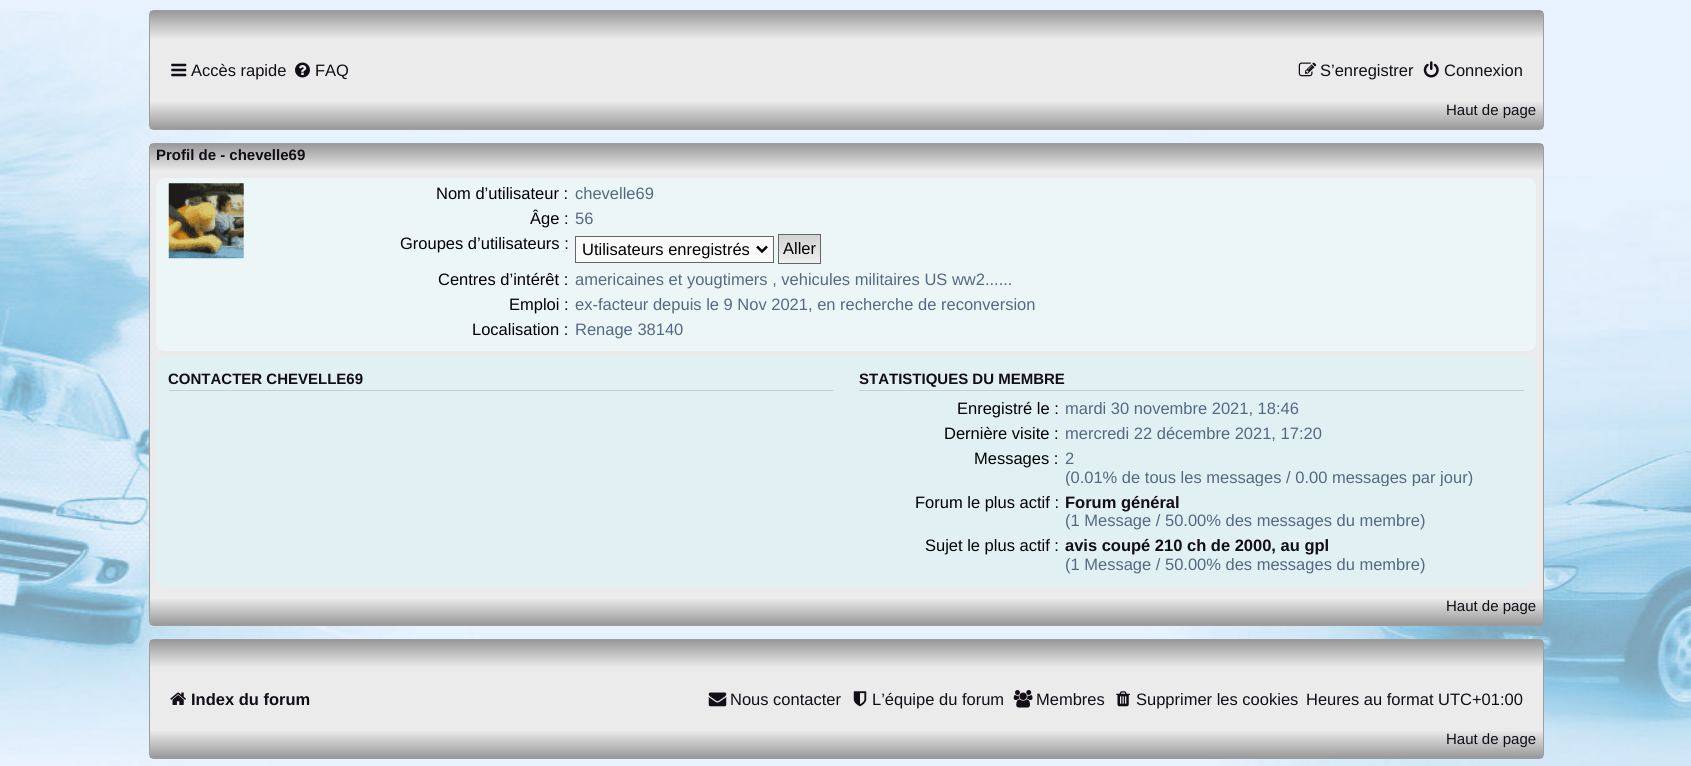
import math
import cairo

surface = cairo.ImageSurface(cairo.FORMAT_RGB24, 1691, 766)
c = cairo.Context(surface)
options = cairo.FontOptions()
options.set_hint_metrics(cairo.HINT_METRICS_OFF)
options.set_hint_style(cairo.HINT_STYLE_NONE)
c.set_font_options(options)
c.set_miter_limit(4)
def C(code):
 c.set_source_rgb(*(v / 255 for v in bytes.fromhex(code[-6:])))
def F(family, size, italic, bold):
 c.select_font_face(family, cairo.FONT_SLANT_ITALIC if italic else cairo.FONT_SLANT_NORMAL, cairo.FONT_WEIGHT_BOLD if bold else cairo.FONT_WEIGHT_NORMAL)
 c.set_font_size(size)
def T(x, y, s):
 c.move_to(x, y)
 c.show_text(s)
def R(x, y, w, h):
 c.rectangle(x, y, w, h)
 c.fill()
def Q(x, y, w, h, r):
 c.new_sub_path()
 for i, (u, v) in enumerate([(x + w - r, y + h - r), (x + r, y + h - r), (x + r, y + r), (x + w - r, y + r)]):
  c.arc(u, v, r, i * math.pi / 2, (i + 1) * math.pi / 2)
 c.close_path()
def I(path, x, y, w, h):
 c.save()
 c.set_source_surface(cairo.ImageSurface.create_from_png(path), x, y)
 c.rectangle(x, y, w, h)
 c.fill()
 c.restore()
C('e7f2fe')
c.paint()
I('1.png',0,11,1691,755)
C('ebebeb')
Q(149.5,10.5,1394,119,4.5)
c.fill_preserve()
C('9d9d9d')
c.set_line_width(1)
c.stroke()
gradient = cairo.LinearGradient(846,39,846,11)
gradient.add_color_stop_rgba(0,0.922,0.922,0.922,1)
gradient.add_color_stop_rgba(1,0.6,0.6,0.6,1)
c.set_source(gradient)
R(150,11,1393,27)
I('2.png',171,63,16,14)
F('Liberation Sans',16.5,0,0)
C('120d16')
T(191,76,'Accès rapide')
I('3.png',295,62,15,16)
T(315,76,'FAQ')
I('4.png',1298,62,19,15)
T(1320,76,'S’enregistrer')
I('5.png',1423,61,16,17)
T(1444,76,'Connexion')
gradient = cairo.LinearGradient(846,129,846,101)
gradient.add_color_stop_rgba(0,0.6,0.6,0.6,1)
gradient.add_color_stop_rgba(1,0.922,0.922,0.922,1)
c.set_source(gradient)
R(150,102,1393,27)
F('Liberation Sans',15,0,0)
C('120d16')
T(1446,115,'Haut de page')
C('ebebeb')
Q(149.5,143.5,1394,482,4.5)
c.fill_preserve()
C('9d9d9d')
c.stroke()
gradient = cairo.LinearGradient(846,171,846,144)
gradient.add_color_stop_rgba(0,0.922,0.922,0.922,1)
gradient.add_color_stop_rgba(1,0.6,0.6,0.6,1)
c.set_source(gradient)
R(150,144,1393,26)
F('Liberation Sans',15,0,1)
C('120d16')
T(156,160,'Profil de - chevelle69')
C('edf6f7')
Q(156,178,1380,173,9)
c.fill()
I('6.png',168,183,76,76)
F('Liberation Sans',16.5,0,0)
C('000000')
T(436,199,'Nom d’utilisateur :')
C('536982')
T(575,199,'chevelle69')
C('000000')
T(530,224,'Âge :')
C('536982')
T(575,224,'56')
C('000000')
T(400,249,'Groupes d’utilisateurs :')
C('fafafa')
c.rectangle(575.5,236.5,198,26)
c.fill_preserve()
C('666666')
c.stroke()
c.new_path()
c.move_to(757,246.5)
c.line_to(762,251.5)
c.line_to(767,246.5)
C('000000')
c.set_line_width(2.5)
c.stroke()
T(582,255,'Utilisateurs enregistrés')
gradient = cairo.LinearGradient(799,235,799,263)
gradient.add_color_stop_rgba(0,0.824,0.824,0.824,1)
gradient.add_color_stop_rgba(1,0.937,0.937,0.937,1)
c.set_source(gradient)
R(779,235,41,28)
c.rectangle(778.5,234.5,42,29)
C('666666')
c.set_line_width(1)
c.stroke()
C('000000')
T(783,254,'Aller')
T(438,285,'Centres d’intérêt :')
C('536982')
T(575,285,'americaines et yougtimers , vehicules militaires US ww2......')
C('000000')
T(509,310,'Emploi :')
C('536982')
T(575,310,'ex-facteur depuis le 9 Nov 2021, en recherche de reconversion')
C('000000')
T(472,335,'Localisation :')
C('536982')
T(575,335,'Renage 38140')
C('e1f0f2')
Q(156,356,1380,230,9)
c.fill()
C('cccccc')
R(169,390,664,1)
F('Liberation Sans',15,0,1)
C('120d16')
T(168,384,'CONTACTER CHEVELLE69')
C('cccccc')
R(859,390,665,1)
C('120d16')
T(859,384,'STATISTIQUES DU MEMBRE')
F('Liberation Sans',16.5,0,0)
C('000000')
T(957,414,'Enregistré le :')
C('536982')
T(1065,414,'mardi 30 novembre 2021, 18:46')
C('000000')
T(944,439,'Dernière visite :')
C('536982')
T(1065,439,'mercredi 22 décembre 2021, 17:20')
C('000000')
T(974,464,'Messages :')
C('536982')
T(1065,464,'2')
c.save()
c.rectangle(1059,449,431,37)
c.clip()
T(1065,483,'(0.01% de tous les messages / 0.00 messages par jour)')
c.restore()
C('000000')
T(915,508,'Forum le plus actif :')
F('Liberation Sans',16.5,0,1)
C('120d16')
T(1065,508,'Forum général')
F('Liberation Sans',16.5,0,0)
C('536982')
T(1065,526,'(1 Message / 50.00% des messages du membre)')
C('000000')
T(925,551,'Sujet le plus actif :')
F('Liberation Sans',16.5,0,1)
C('120d16')
T(1065,551,'avis coupé 210 ch de 2000, au gpl')
F('Liberation Sans',16.5,0,0)
C('536982')
T(1065,570,'(1 Message / 50.00% des messages du membre)')
gradient = cairo.LinearGradient(846,625,846,598)
gradient.add_color_stop_rgba(0,0.6,0.6,0.6,1)
gradient.add_color_stop_rgba(1,0.922,0.922,0.922,1)
c.set_source(gradient)
R(150,599,1393,26)
F('Liberation Sans',15,0,0)
C('120d16')
T(1446,611,'Haut de page')
C('ebebeb')
Q(149.5,639.5,1394,119,4.5)
c.fill_preserve()
C('9d9d9d')
c.stroke()
gradient = cairo.LinearGradient(846,668,846,640)
gradient.add_color_stop_rgba(0,0.922,0.922,0.922,1)
gradient.add_color_stop_rgba(1,0.6,0.6,0.6,1)
c.set_source(gradient)
R(150,640,1393,27)
I('7.png',170,692,16,13)
F('Liberation Sans',16.5,0,1)
C('120d16')
T(191,705,'Index du forum')
I('8.png',708,692,19,15)
F('Liberation Sans',16.5,0,0)
T(730,705,'Nous contacter')
I('9.png',853,691,14,16)
T(872,705,'L’équipe du forum')
I('10.png',1013,690,20,18)
T(1036,705,'Membres')
I('11.png',1116,691,14,16)
T(1136,705,'Supprimer les cookies')
T(1306,705,'Heures au format UTC+01:00')
gradient = cairo.LinearGradient(846,758,846,730)
gradient.add_color_stop_rgba(0,0.6,0.6,0.6,1)
gradient.add_color_stop_rgba(1,0.922,0.922,0.922,1)
c.set_source(gradient)
R(150,731,1393,27)
F('Liberation Sans',15,0,0)
C('120d16')
T(1446,744,'Haut de page')
surface.write_to_png('o.png')
